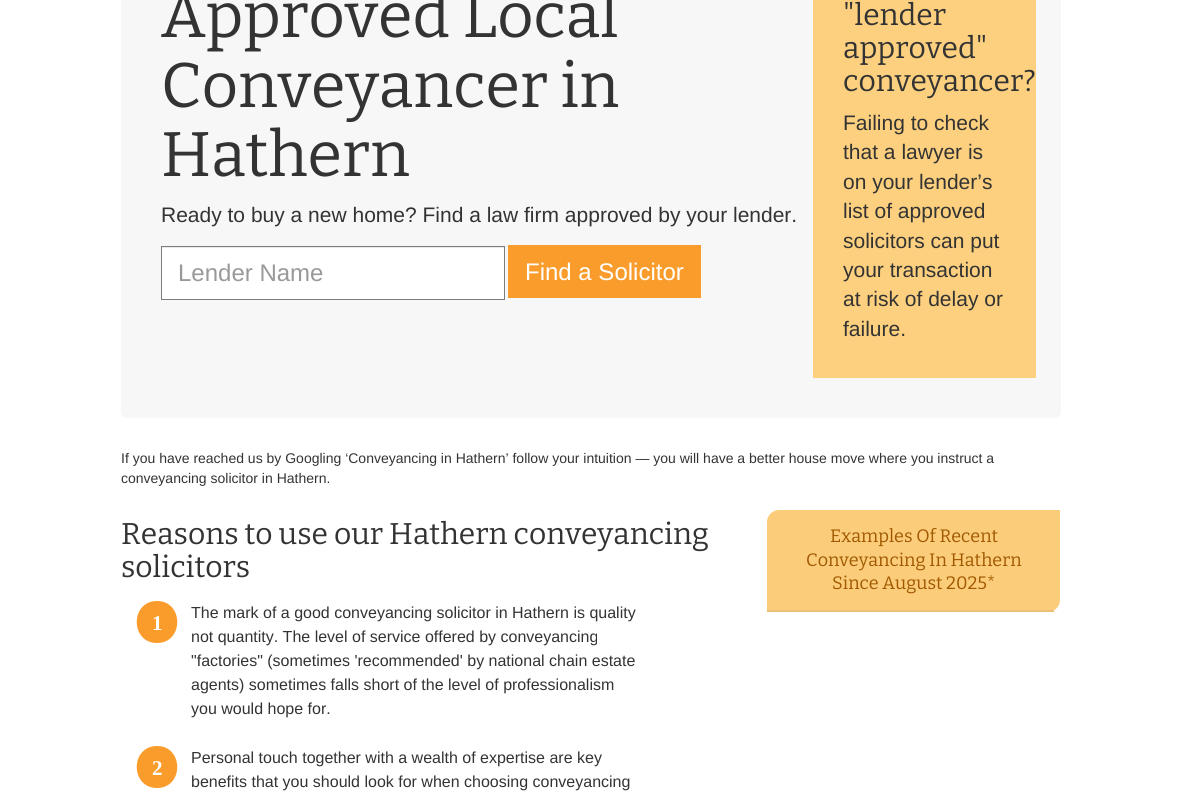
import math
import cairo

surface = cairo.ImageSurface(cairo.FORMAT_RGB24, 1181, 803)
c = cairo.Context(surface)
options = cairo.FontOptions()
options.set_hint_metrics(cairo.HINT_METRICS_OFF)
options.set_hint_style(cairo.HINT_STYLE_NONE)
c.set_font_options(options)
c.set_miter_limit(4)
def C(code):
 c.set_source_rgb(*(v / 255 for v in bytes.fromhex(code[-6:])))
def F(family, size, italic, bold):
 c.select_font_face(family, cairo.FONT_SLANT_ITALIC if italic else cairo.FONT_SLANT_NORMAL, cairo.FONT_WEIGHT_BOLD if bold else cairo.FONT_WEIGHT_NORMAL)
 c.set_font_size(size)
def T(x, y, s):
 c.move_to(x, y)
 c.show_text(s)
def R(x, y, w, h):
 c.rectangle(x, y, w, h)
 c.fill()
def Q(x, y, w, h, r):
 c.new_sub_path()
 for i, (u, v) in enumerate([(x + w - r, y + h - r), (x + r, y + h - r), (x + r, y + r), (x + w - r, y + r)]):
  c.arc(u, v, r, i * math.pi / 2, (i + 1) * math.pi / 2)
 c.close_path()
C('ffffff')
c.paint()
C('f7f7f7')
Q(121,-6,940,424,6)
c.fill()
F('Bitter',63,0,0)
C('333333')
T(161,37,'Approved Local')
T(161,107,'Conveyancer in')
T(161,176,'Hathern')
F('Liberation Sans',21,0,0)
T(161,222,'Ready to buy a new home? Find a law firm approved by your lender.')
C('ffffff')
R(162,248,342,51)
C('ececec')
R(162,247,342,1)
c.rectangle(161.5,246.5,343,53)
C('7c7c7c')
c.set_line_width(1)
c.stroke()
F('Liberation Sans',24,0,0)
C('999999')
T(178,281,'Lender Name')
C('fa9c2b')
R(508,245,193,53)
C('ffffff')
T(525,280,'Find a Solicitor')
C('fcd07e')
R(813,0,223,378)
F('Bitter',30,0,0)
C('333333')
T(843,25,'"lender')
T(843,58,'approved"')
T(843,91,'conveyancer?')
F('Liberation Sans',21,0,0)
T(843,130,'Failing to check')
T(843,159,'that a lawyer is')
T(843,189,'on your lender’s')
T(843,218,'list of approved')
T(843,248,'solicitors can put')
T(843,277,'your transaction')
T(843,306,'at risk of delay or')
T(843,336,'failure.')
F('Liberation Sans',14,0,0)
T(121,463,'If you have reached us by Googling ‘Conveyancing in Hathern’ follow your intuition — you will have a better house move where you instruct a')
T(121,483,'conveyancing solicitor in Hathern.')
F('Bitter',30,0,0)
T(121,544,'Reasons to use our Hathern conveyancing')
T(121,577,'solicitors')
C('fa9c2b')
c.new_path()
c.move_to(157,601)
c.curve_to(130,601,130,643,157,643)
c.curve_to(184,643,184,601,157,601)
c.close_path()
c.fill()
F('Liberation Serif',21,0,1)
C('ffffff')
T(152,630,'1')
F('Liberation Sans',16,0,0)
C('333333')
T(191,618,'The mark of a good conveyancing solicitor in Hathern is quality')
T(191,642,'not quantity. The level of service offered by conveyancing')
T(191,666,'"factories" (sometimes \'recommended\' by national chain estate')
T(191,690,'agents) sometimes falls short of the level of professionalism')
T(191,714,'you would hope for.')
C('fa9c2b')
c.new_path()
c.move_to(157,746)
c.curve_to(130,746,130,788,157,788)
c.curve_to(184,788,184,746,157,746)
c.close_path()
c.fill()
F('Liberation Serif',21,0,1)
C('ffffff')
T(152,775,'2')
F('Liberation Sans',16,0,0)
C('333333')
T(191,763,'Personal touch together with a wealth of expertise are key')
T(191,787,'benefits that you should look for when choosing conveyancing')
C('fbcd7a')
c.new_path()
c.move_to(779,510)
c.line_to(1060,510)
c.line_to(1060,600)
c.curve_to(1060,606.5,1054.5,612,1048,612)
c.line_to(767,612)
c.line_to(767,522)
c.curve_to(767,515.5,772.5,510,779,510)
c.close_path()
c.fill()
C('eac177')
R(767,610,287,2)
F('Bitter',18,0,0)
C('a15800')
T(830,542,'Examples Of Recent')
T(806,566,'Conveyancing In Hathern')
T(832,589,'Since August 2025*')
surface.write_to_png('o.png')
